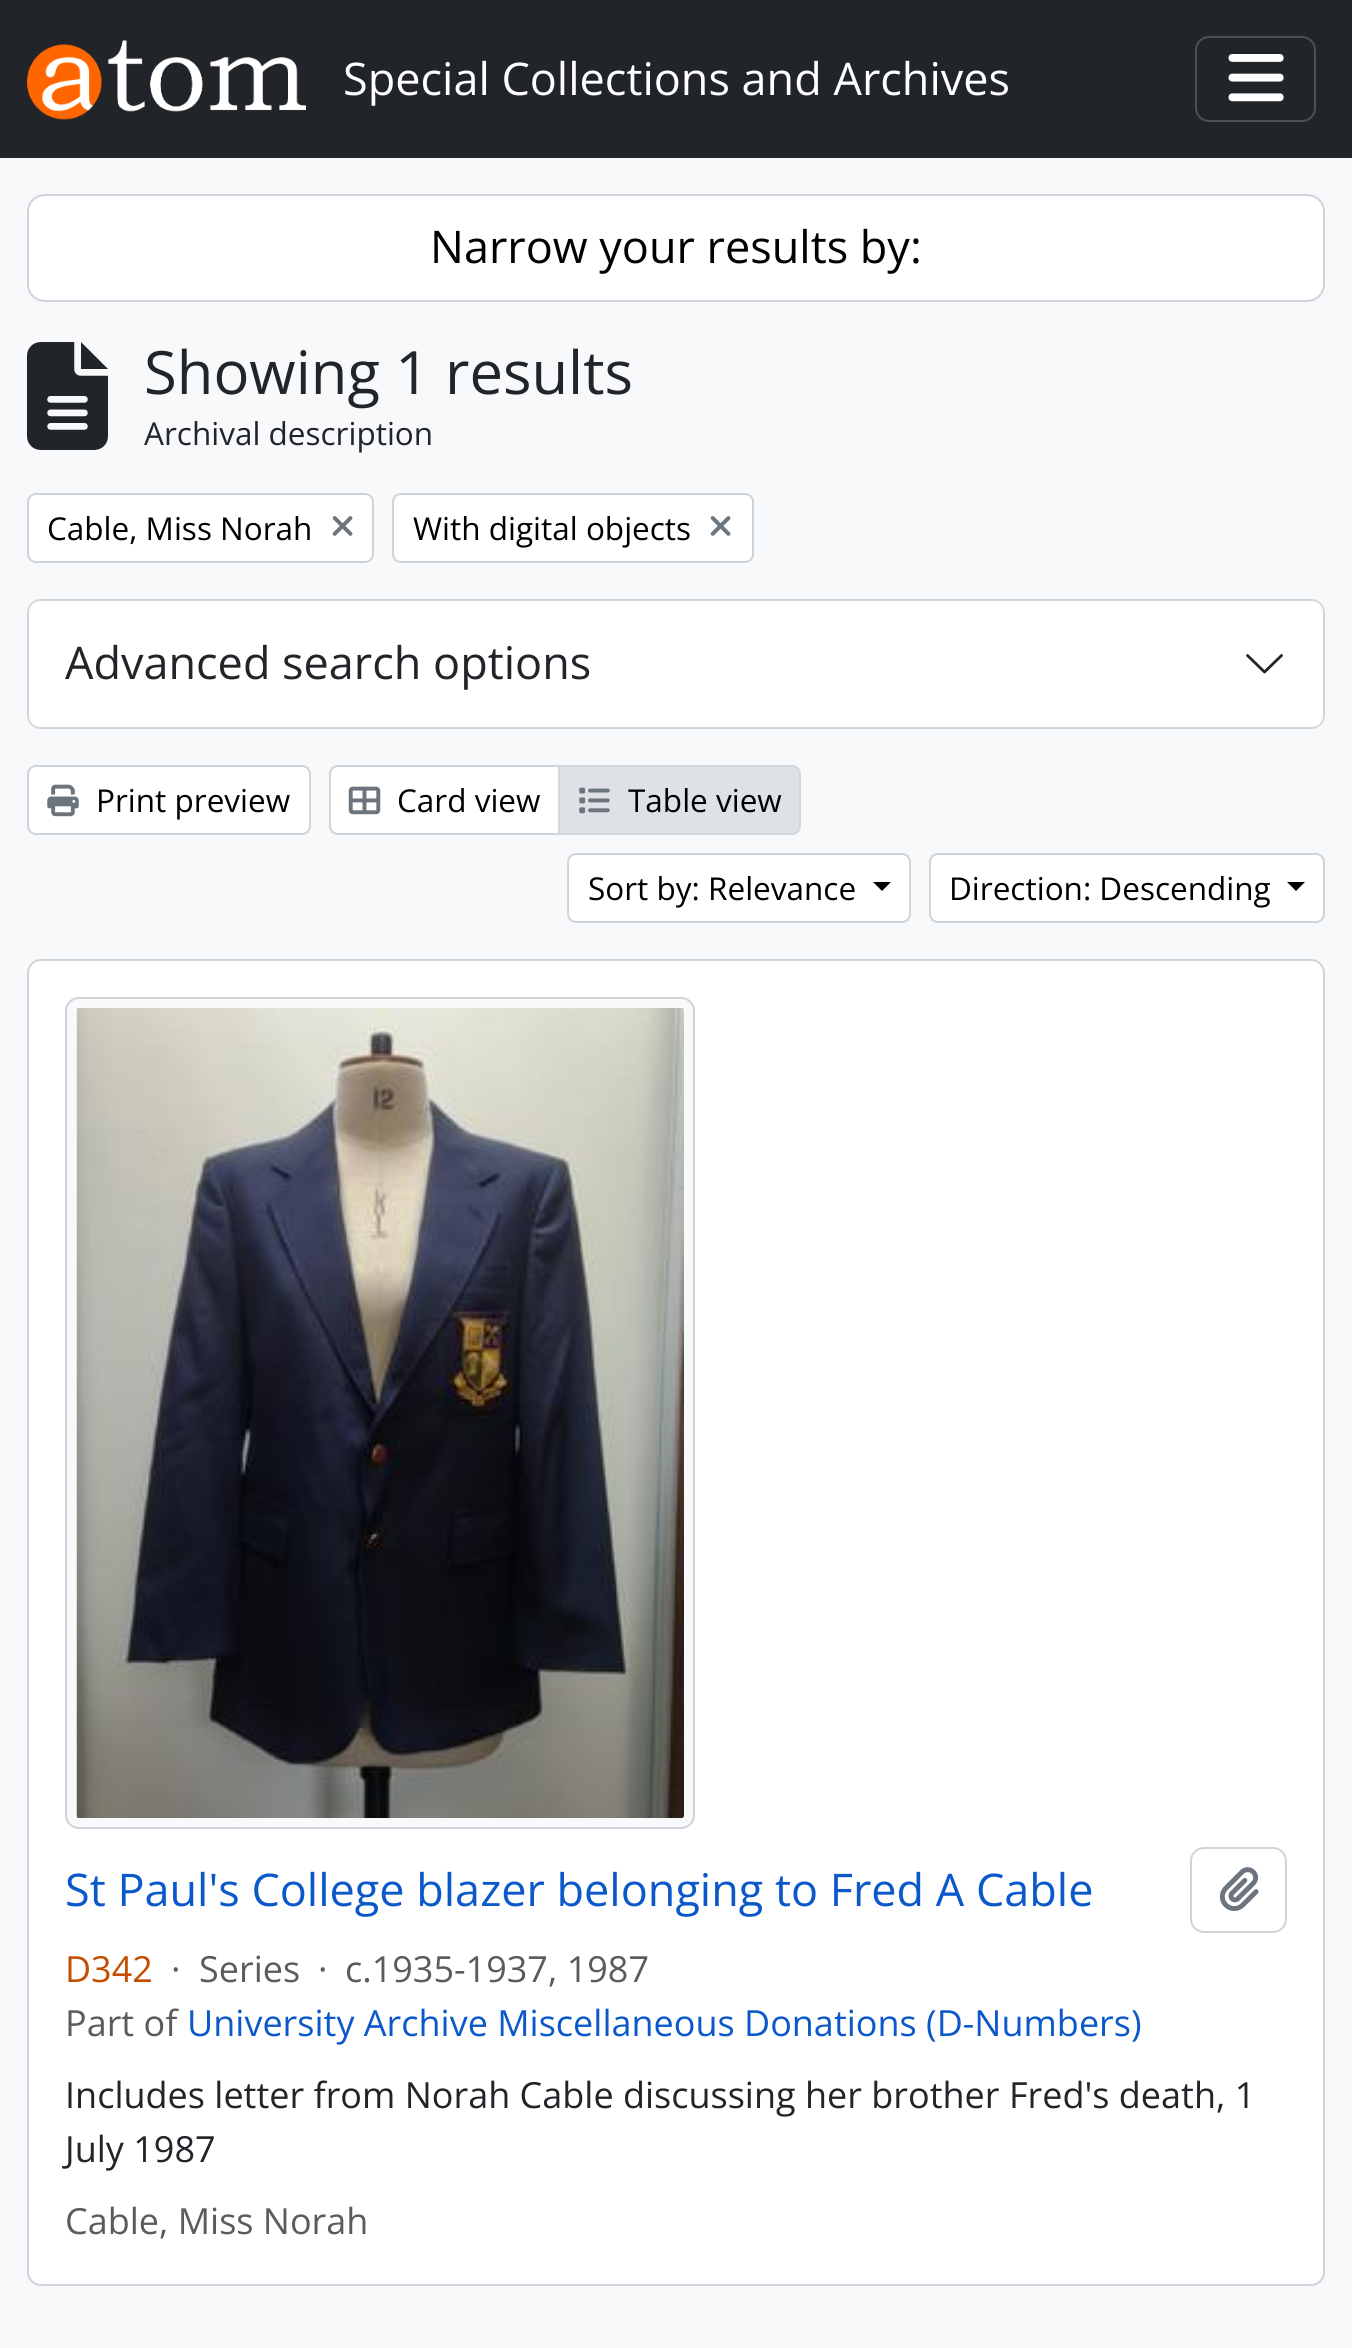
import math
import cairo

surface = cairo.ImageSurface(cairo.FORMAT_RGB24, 1352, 2348)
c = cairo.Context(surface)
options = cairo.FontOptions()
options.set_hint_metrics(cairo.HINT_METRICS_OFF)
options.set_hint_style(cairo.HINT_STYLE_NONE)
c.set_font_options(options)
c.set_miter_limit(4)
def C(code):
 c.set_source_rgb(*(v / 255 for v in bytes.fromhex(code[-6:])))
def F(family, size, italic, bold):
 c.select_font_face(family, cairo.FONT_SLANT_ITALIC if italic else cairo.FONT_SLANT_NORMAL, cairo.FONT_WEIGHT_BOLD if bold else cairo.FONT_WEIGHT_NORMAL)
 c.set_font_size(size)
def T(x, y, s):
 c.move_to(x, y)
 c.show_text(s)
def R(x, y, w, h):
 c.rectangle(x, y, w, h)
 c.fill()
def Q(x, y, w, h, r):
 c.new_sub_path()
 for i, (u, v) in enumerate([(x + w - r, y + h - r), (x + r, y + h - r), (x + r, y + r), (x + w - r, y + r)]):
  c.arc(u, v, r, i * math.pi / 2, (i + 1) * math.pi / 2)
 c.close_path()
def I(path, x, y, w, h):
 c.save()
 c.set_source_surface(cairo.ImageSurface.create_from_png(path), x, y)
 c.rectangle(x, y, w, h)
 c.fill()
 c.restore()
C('f8f9fa')
c.paint()
C('212529')
R(0,0,1352,158)
I('1.png',27,40,279,80)
F('Open Sans',45,0,0)
C('ffffff')
T(343,95,'Special Collections and Archives')
Q(1196,37,119,84,13)
C('495057')
c.stroke()
I('2.png',1228,54,56,48)
C('ffffff')
Q(28,195,1296,106,17)
c.fill_preserve()
C('ced4da')
c.stroke()
C('000000')
T(430,263,'Narrow your results by:')
I('3.png',27,342,81,108)
F('Open Sans',59.75,0,0)
C('212529')
T(144,394,'Showing 1 results')
F('Open Sans',31.5,0,0)
T(144,445,'Archival description')
C('ffffff')
Q(28,494,345,68,8)
c.fill_preserve()
C('ced4da')
c.stroke()
C('000000')
T(47,540,'Cable, Miss Norah')
I('4.png',332,516,21,20)
C('ffffff')
Q(393,494,360,68,8)
c.fill_preserve()
C('ced4da')
c.stroke()
C('000000')
T(413,540,'With digital objects')
I('4.png',710,516,21,20)
Q(28,600,1296,128,13)
C('ced4da')
c.stroke()
C('ffffff')
Q(29,601,1294,126,11)
c.fill()
F('Open Sans',45,0,0)
C('212529')
T(65,679,'Advanced search options')
c.new_path()
c.move_to(1247.5,655.5)
c.line_to(1264.5,672)
c.line_to(1281.5,655.5)
c.set_line_width(2.8)
c.set_line_cap(cairo.LINE_CAP_ROUND)
c.set_line_join(cairo.LINE_JOIN_ROUND)
c.stroke()
C('ffffff')
Q(28,766,282,68,8)
c.fill_preserve()
C('ced4da')
c.set_line_width(2)
c.set_line_cap(cairo.LINE_CAP_BUTT)
c.set_line_join(cairo.LINE_JOIN_MITER)
c.stroke()
I('5.png',47,784,32,33)
F('Open Sans',31.5,0,0)
C('000000')
T(96,812,'Print preview')
C('ffffff')
c.new_path()
c.move_to(338,766)
c.line_to(559,766)
c.line_to(559,834)
c.line_to(338,834)
c.curve_to(333.5,834,330,830.5,330,826)
c.line_to(330,774)
c.curve_to(330,769.5,333.5,766,338,766)
c.close_path()
c.fill_preserve()
C('ced4da')
c.stroke()
I('6.png',348,786,33,29)
C('000000')
T(397,812,'Card view')
C('dee2e6')
c.new_path()
c.move_to(559,766)
c.line_to(792,766)
c.curve_to(796.5,766,800,769.5,800,774)
c.line_to(800,826)
c.curve_to(800,830.5,796.5,834,792,834)
c.line_to(559,834)
c.close_path()
c.fill_preserve()
C('d3d8de')
c.stroke()
I('7.png',579,787,31,27)
C('000000')
T(628,812,'Table view')
C('ffffff')
Q(568,854,342,68,8)
c.fill_preserve()
C('ced4da')
c.stroke()
C('000000')
T(588,900,'Sort by: Relevance')
c.new_path()
c.move_to(873,882)
c.line_to(891,882)
c.line_to(882,891)
c.close_path()
c.fill()
C('ffffff')
Q(930,854,394,68,8)
c.fill_preserve()
C('ced4da')
c.stroke()
C('000000')
T(949,900,'Direction: Descending')
c.new_path()
c.move_to(1287,882)
c.line_to(1305,882)
c.line_to(1296,891)
c.close_path()
c.fill()
C('ffffff')
Q(28,960,1296,1325,13)
c.fill_preserve()
C('ced4da')
c.stroke()
C('f8f9fa')
Q(66,998,628,830,13)
c.fill_preserve()
C('ced4da')
c.stroke()
I('8.png',76,1008,608,810)
F('Open Sans',45,0,0)
C('0a58ca')
T(65,1906,'St Paul\'s College blazer belonging to Fred A Cable')
Q(1191,1848,95,84,13)
C('ced4da')
c.stroke()
I('9.png',1219,1867,40,44)
F('Open Sans',36,0,0)
C('c44e00')
T(65,1982,'D342')
C('595c5f')
T(171,1982,'·')
T(199,1982,'Series')
T(318,1982,'·')
T(345,1982,'c.1935-1937, 1987')
T(65,2036,'Part of')
C('0a58ca')
T(187,2036,'University Archive Miscellaneous Donations (D-Numbers)')
C('212529')
T(65,2108,'Includes letter from Norah Cable discussing her brother Fred\'s death, 1')
T(65,2162,'July 1987')
C('595c5f')
T(65,2234,'Cable, Miss Norah')
surface.write_to_png('o.png')
